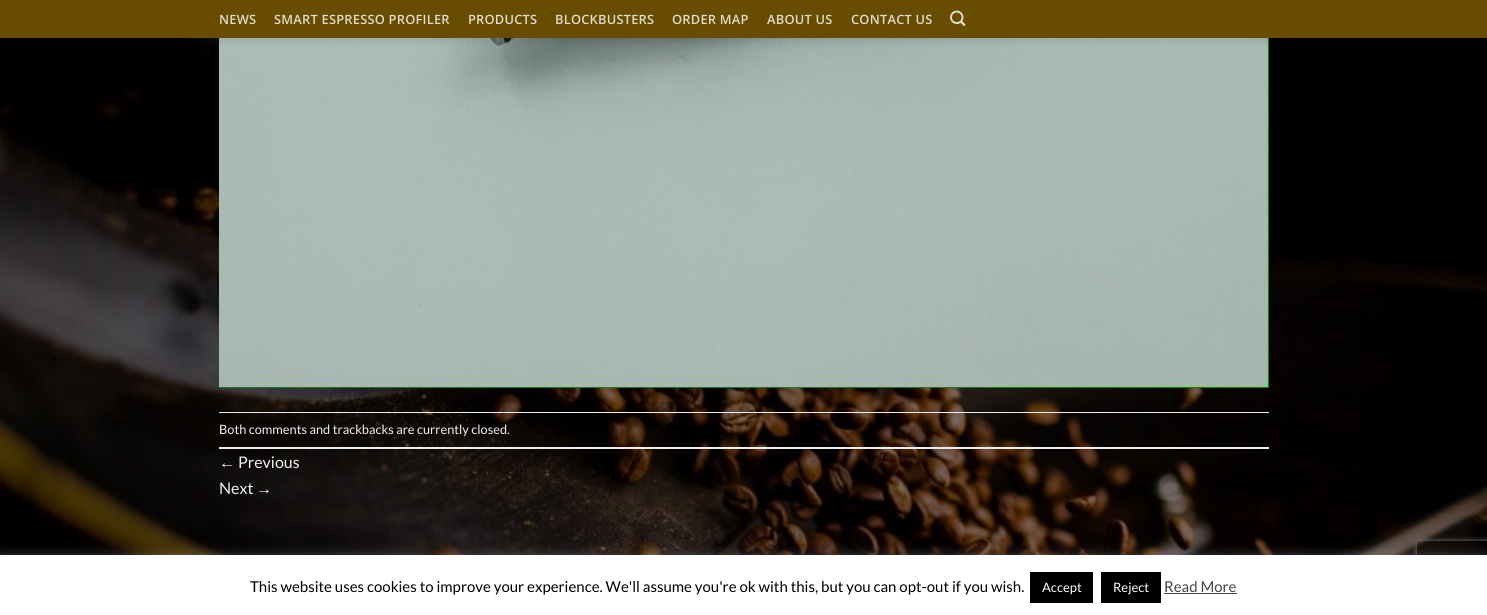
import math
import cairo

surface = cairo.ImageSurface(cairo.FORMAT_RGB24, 1487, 615)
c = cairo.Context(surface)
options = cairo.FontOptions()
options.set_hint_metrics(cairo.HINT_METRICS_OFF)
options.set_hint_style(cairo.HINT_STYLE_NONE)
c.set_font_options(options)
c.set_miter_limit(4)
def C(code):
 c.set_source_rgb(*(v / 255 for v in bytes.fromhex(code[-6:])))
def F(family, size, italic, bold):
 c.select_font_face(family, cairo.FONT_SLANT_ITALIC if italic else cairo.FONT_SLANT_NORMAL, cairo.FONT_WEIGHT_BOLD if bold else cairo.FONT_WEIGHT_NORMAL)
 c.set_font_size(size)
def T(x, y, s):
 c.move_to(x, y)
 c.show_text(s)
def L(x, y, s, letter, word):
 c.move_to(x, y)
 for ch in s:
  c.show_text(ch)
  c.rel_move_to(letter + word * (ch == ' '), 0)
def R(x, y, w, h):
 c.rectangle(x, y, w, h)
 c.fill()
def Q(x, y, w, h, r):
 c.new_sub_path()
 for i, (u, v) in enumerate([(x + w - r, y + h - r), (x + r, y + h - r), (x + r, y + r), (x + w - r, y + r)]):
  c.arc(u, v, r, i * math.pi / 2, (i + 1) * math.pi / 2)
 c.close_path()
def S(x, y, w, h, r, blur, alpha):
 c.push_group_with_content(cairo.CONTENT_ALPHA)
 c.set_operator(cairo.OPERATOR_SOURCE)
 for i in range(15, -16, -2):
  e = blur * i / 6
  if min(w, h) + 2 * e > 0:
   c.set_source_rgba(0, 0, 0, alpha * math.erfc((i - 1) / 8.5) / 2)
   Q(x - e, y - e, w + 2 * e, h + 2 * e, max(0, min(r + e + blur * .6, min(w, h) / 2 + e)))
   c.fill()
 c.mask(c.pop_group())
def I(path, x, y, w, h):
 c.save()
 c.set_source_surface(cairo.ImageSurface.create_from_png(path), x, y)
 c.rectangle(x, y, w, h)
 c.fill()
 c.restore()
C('ffffff')
c.paint()
I('1.png',0,38,1487,517)
I('3.png',219,38,1050,350)
C('000000')
S(1,1,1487,38,0,5,.15)
C('684c00')
R(0,0,1487,38)
F('Open Sans SemiBold',12.8,0,0)
C('e1dbcc')
L(219,24,'NEWS',.25,0)
L(274,24,'SMART ESPRESSO PROFILER',.25,0)
L(468,24,'PRODUCTS',.25,0)
L(555,24,'BLOCKBUSTERS',.25,0)
L(672,24,'ORDER MAP',.25,0)
L(767,24,'ABOUT US',.25,0)
L(851,24,'CONTACT US',.25,0)
I('2.png',950,10,16,16)
C('ececec')
R(219,412,1050,1)
R(219,447,1050,2)
F('Lato',12.8,0,0)
C('f1f1f1')
T(219,434,'Both comments and trackbacks are currently closed.')
F('Liberation Sans',16,0,0)
T(219,468,'←')
F('Lato',16,0,0)
T(238,468,'Previous')
T(219,494,'Next')
F('Liberation Sans',16,0,0)
T(256,494,'→')
C('acabab')
S(0,554,1487,60,0,5,.3)
c.save()
c.set_fill_rule(cairo.FILL_RULE_EVEN_ODD)
c.new_path()
c.move_to(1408,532)
c.line_to(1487,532)
c.line_to(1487,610)
c.line_to(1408,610)
c.close_path()
c.move_to(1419,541)
c.line_to(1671,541)
c.curve_to(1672,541,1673,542,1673,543)
c.line_to(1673,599)
c.curve_to(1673,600,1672,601,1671,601)
c.line_to(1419,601)
c.curve_to(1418,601,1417,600,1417,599)
c.line_to(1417,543)
c.curve_to(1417,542,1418,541,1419,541)
c.close_path()
c.clip()
C('808080')
S(1417,541,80,60,2,2.5,1)
c.restore()
C('ffffff')
R(0,555,1487,60)
F('Lato',15,0,0)
C('000000')
T(250,592,'This website uses cookies to improve your experience. We\'ll assume you\'re ok with this, but you can opt-out if you wish.')
R(1030,572,63,31)
F('Lato',13,0,0)
C('ffffff')
T(1042,592,'Accept')
C('000000')
R(1101,572,60,31)
C('ffffff')
T(1113,592,'Reject')
F('Lato',15,0,0)
C('444444')
T(1164,592,'Read More')
R(1164,593,73,1)
surface.write_to_png('o.png')
